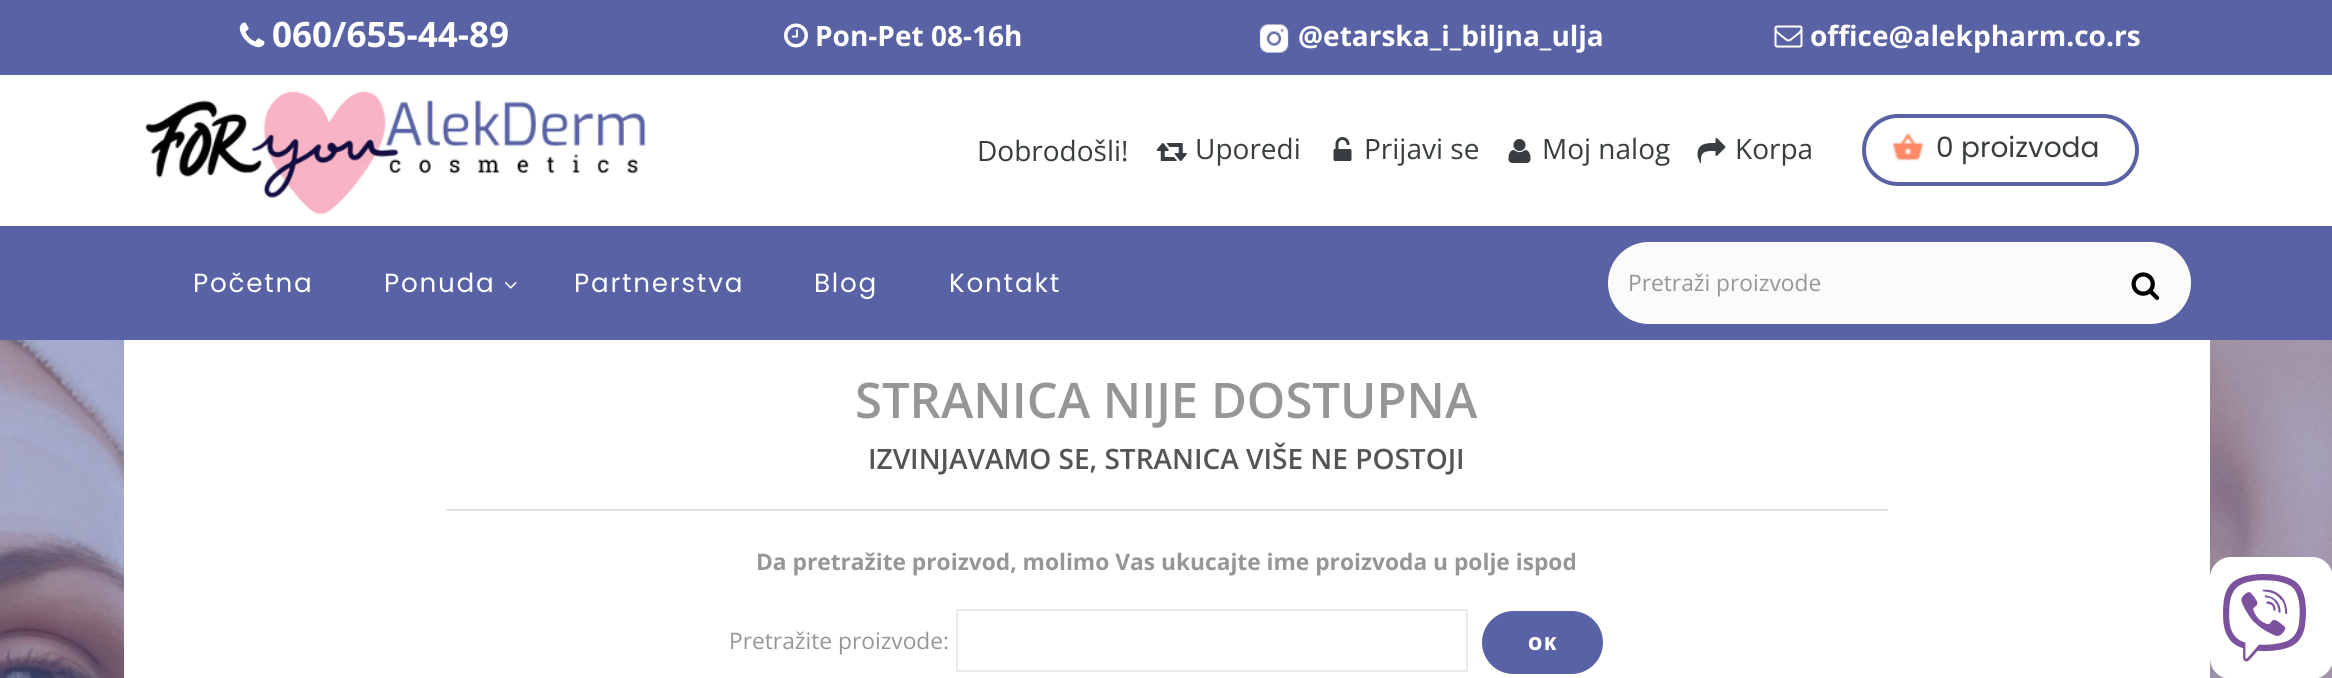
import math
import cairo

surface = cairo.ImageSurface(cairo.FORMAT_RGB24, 2332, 678)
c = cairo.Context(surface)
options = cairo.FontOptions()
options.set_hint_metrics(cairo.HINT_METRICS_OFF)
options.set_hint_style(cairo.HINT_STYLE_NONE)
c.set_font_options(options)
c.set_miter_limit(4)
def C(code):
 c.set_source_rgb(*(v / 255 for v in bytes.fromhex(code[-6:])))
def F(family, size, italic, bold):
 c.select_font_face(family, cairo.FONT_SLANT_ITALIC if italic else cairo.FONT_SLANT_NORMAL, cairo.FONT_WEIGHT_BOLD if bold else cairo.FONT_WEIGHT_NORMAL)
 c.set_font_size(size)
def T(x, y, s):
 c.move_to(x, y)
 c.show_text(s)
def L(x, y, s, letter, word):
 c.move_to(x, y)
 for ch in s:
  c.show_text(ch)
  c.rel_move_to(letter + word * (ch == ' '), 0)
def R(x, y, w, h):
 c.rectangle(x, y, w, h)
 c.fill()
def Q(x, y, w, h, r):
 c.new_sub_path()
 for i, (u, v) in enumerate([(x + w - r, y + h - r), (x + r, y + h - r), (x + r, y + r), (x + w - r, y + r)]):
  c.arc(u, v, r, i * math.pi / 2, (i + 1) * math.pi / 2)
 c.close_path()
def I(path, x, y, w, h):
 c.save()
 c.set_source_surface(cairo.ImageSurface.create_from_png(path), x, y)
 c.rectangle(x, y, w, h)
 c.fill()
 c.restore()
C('ffffff')
c.paint()
C('5862a4')
R(0,0,2332,75)
I('1.png',239,22,26,26)
F('Open Sans',35,0,1)
C('ffffff')
T(272,47,'060/655-44-89')
I('2.png',784,23,24,25)
F('Open Sans',28,0,1)
T(815,46,'Pon-Pet 08-16h')
I('3.png',1259,24,30,29)
T(1298,46,'@etarska_i_biljna_ulja')
I('4.png',1774,25,29,23)
T(1810,46,'office@alekpharm.co.rs')
I('5.png',0,340,124,338)
I('6.png',145,91,501,124)
F('Open Sans',28,0,0)
C('383d40')
T(977,161,'Dobrodošli!')
I('7.png',1156,143,31,18)
T(1195,159,'Uporedi')
I('8.png',1333,137,19,24)
T(1364,159,'Prijavi se')
I('9.png',1508,139,23,24)
T(1542,159,'Moj nalog')
I('10.png',1697,138,29,25)
T(1735,159,'Korpa')
I('11.png',1892,133,32,28)
Q(1864,116,273,68,34)
C('5862a4')
c.set_line_width(4)
c.stroke()
F('Poppins',28,0,0)
C('383d40')
T(1936,157,'0 proizvoda')
C('5862a4')
R(0,226,2332,114)
F('Poppins',26.25,0,0)
C('ffffff')
L(193,292,'Početna',1.75,0)
L(384,292,'Ponuda',1.75,0)
I('12.png',505,282,12,7)
L(574,292,'Partnerstva',1.75,0)
L(814,292,'Blog',1.75,0)
L(949,292,'Kontakt',1.75,0)
Q(1608,242,583,82,41)
c.fill()
Q(1609,243,581,80,40)
c.set_source_rgba(1,1,1,0.1)
c.set_line_width(2)
c.stroke()
c.save()
Q(1610,243,579,79,39.5)
c.clip()
C('fbfbfb')
c.new_path()
c.move_to(1649.5,243)
c.line_to(2188,243)
c.line_to(2188,322)
c.line_to(1649.5,322)
c.curve_to(1627.5,322,1610,304.5,1610,282.5)
c.curve_to(1610,260.5,1627.5,243,1649.5,243)
c.close_path()
c.fill()
c.restore()
F('Open Sans',22.75,0,0)
C('969696')
T(1628,291,'Pretraži proizvode')
I('13.png',2131,272,29,28)
F('Open Sans SemiBold',49,0,0)
T(855,418,'STRANICA NIJE DOSTUPNA')
C('e1e1e1')
R(446,509,1442,2)
F('Open Sans SemiBold',28,0,0)
C('555454')
T(868,469,'IZVINJAVAMO SE, STRANICA VIŠE NE POSTOJI')
F('Open Sans',22.75,0,1)
C('969696')
T(756,570,'Da pretražite proizvod, molimo Vas ukucajte ime proizvoda u polje ispod')
F('Open Sans',22.75,0,0)
T(729,649,'Pretražite proizvode:')
c.rectangle(957,610,510,61)
C('ebebeb')
c.stroke()
C('5862a4')
Q(1484,613,117,59,29.5)
c.fill_preserve()
c.set_line_width(4)
c.stroke()
F('Open Sans ExtraBold',18,0,0)
C('ffffff')
L(1528,650,'OK',1.75,0)
I('14.png',2210,340,122,338)
Q(2210,557,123,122,21)
c.fill()
I('15.png',2223,574,83,88)
surface.write_to_png('o.png')
